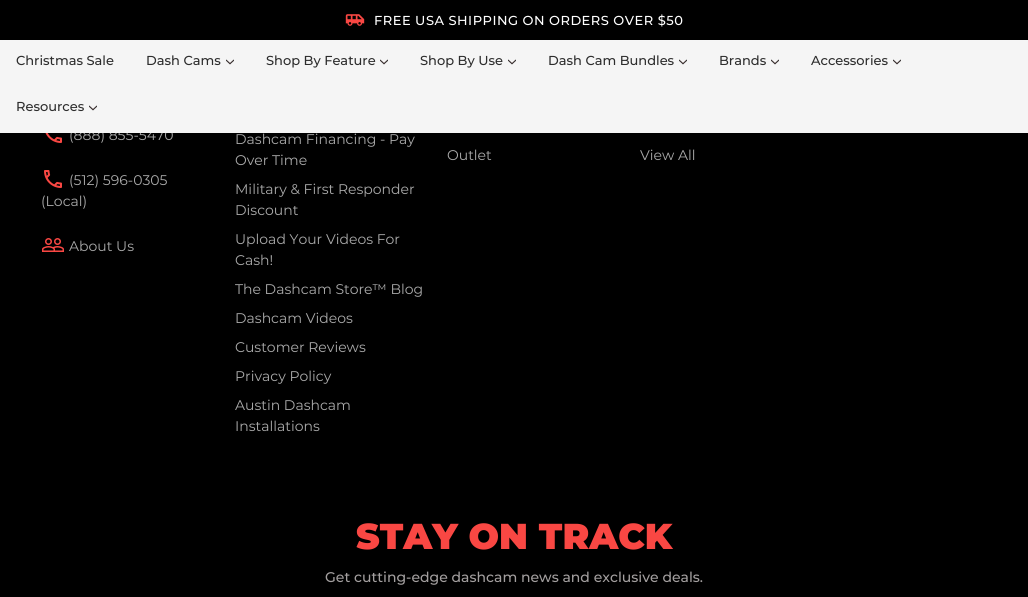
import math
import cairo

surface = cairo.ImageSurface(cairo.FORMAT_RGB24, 1028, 597)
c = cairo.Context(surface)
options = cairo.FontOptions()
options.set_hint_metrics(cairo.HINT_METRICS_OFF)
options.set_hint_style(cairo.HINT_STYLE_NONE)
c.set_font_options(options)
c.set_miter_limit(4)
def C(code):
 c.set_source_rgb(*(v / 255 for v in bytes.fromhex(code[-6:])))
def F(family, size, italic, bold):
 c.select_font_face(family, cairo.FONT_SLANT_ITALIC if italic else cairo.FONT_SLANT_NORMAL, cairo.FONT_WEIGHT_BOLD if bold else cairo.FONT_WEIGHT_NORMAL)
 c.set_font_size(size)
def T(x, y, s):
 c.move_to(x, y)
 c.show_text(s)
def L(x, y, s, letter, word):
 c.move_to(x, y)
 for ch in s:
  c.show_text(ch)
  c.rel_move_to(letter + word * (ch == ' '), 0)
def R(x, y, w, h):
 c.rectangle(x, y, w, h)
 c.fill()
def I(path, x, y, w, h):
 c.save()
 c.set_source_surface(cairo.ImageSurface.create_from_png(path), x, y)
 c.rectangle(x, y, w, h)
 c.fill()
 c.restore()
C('000000')
c.paint()
I('1.png',345,14,20,12)
F('Montserrat Medium',13,0,0)
C('ffffff')
L(374,25,'FREE USA SHIPPING ON ORDERS OVER $50',.5,0)
F('Montserrat',14,0,0)
C('aaaaaa')
T(69,140,'(888) 855-5470')
C('f5f5f5')
R(0,40,1028,93)
F('Montserrat Medium',13,0,0)
C('2d2d2d')
T(16,65,'Christmas Sale')
T(146,65,'Dash Cams')
I('2.png',226,59,8,6)
T(266,65,'Shop By Feature')
I('2.png',380,59,8,6)
T(420,65,'Shop By Use')
I('2.png',508,59,8,6)
T(548,65,'Dash Cam Bundles')
I('2.png',679,59,8,6)
T(719,65,'Brands')
I('2.png',771,59,8,6)
T(811,65,'Accessories')
I('2.png',893,59,8,6)
T(16,111,'Resources')
I('2.png',89,105,8,6)
I('3.png',45,133,17,10)
I('4.png',44,170,18,18)
F('Montserrat',14,0,0)
C('aaaaaa')
T(69,185,'(512) 596-0305')
T(41,206,'(Local)')
I('5.png',42,238,22,14)
T(69,251,'About Us')
T(235,144,'Dashcam Financing - Pay')
T(235,165,'Over Time')
T(235,194,'Military & First Responder')
T(235,215,'Discount')
T(235,244,'Upload Your Videos For')
T(235,265,'Cash!')
T(235,294,'The Dashcam Store™ Blog')
T(235,323,'Dashcam Videos')
T(235,352,'Customer Reviews')
T(235,381,'Privacy Policy')
T(235,410,'Austin Dashcam')
T(235,431,'Installations')
T(447,160,'Outlet')
T(640,160,'View All')
F('Montserrat Black',36,0,0)
C('f94743')
T(356,549,'STAY ON TRACK')
F('Montserrat Medium',14,0,0)
C('a39f9f')
T(325,582,'Get cutting-edge dashcam news and exclusive deals.')
surface.write_to_png('o.png')
